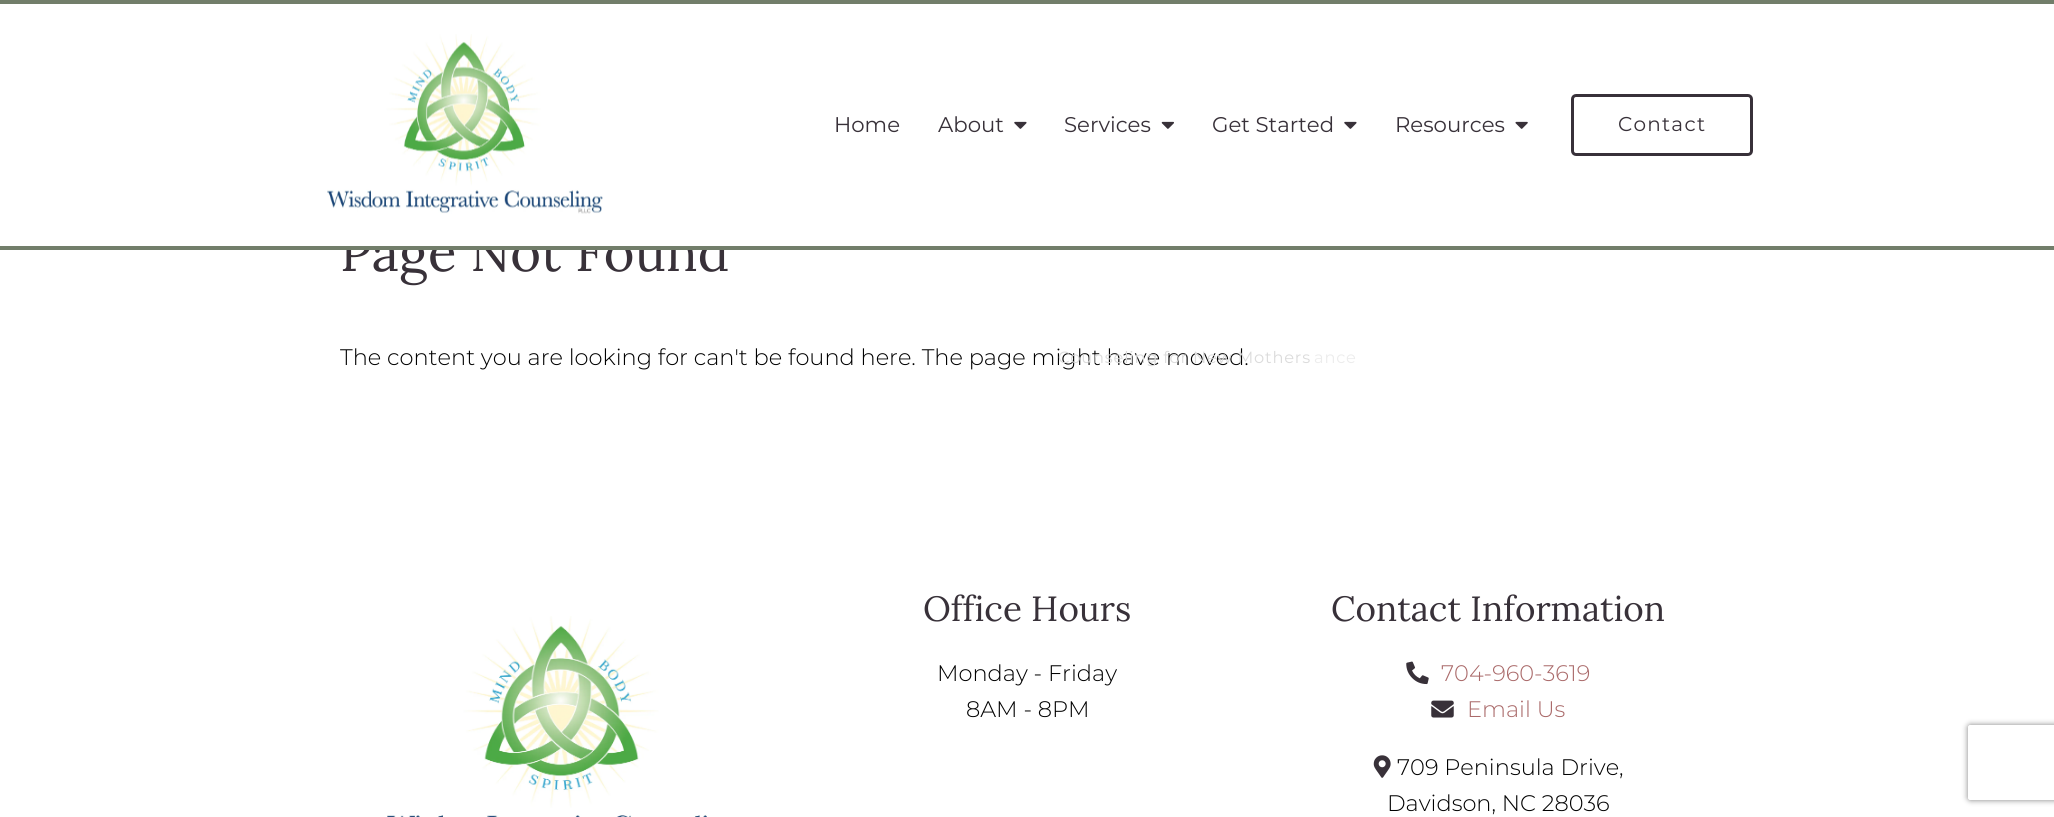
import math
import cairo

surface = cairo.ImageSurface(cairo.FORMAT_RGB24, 2054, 817)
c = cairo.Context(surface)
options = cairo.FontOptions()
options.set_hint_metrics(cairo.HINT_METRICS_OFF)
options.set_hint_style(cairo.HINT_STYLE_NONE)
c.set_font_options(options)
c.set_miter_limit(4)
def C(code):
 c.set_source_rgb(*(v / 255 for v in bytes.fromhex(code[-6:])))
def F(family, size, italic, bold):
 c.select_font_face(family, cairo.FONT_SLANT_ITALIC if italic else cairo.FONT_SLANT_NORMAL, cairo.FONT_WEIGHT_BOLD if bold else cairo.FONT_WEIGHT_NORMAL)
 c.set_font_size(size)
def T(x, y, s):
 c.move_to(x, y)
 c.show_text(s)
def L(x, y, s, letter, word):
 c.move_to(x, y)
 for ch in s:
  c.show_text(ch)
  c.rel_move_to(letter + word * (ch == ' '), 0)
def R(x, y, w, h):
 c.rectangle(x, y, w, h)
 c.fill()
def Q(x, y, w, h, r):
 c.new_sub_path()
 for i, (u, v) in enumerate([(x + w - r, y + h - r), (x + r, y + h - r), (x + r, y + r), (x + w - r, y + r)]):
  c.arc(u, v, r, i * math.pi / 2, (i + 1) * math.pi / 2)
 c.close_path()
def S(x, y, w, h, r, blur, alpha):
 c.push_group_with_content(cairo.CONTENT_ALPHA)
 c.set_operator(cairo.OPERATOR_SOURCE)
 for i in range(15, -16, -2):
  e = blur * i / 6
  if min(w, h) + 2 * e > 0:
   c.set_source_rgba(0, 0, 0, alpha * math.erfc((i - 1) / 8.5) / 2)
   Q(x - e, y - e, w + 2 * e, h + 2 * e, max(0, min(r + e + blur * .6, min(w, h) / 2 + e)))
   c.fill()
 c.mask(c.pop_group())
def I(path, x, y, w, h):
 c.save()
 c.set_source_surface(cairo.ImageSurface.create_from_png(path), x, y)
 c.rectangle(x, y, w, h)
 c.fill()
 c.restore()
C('ffffff')
c.paint()
F('Lora',52.5,0,0)
C('383139')
T(340,271,'Page Not Found')
F('Montserrat Light',22.5,0,0)
C('000000')
T(340,365,'The content you are looking for can\'t be found here. The page might have moved.')
C('ffffff')
R(342,231,383,15)
C('727e6a')
R(0,0,2054,4)
R(0,246,2054,4)
I('1.png',327,34,276,180)
F('Montserrat',21.25,0,0)
C('383139')
T(938,132,'About')
I('2.png',1014,121,13,8)
T(1064,132,'Services')
I('3.png',1161,121,13,8)
F('Montserrat',16.25,0,0)
C('dbdbdb')
L(1058,363,'Counseling for New Mothers',.8,0)
F('Montserrat',21.25,0,0)
C('383139')
T(834,132,'Home')
T(1212,132,'Get Started')
I('2.png',1344,121,13,8)
F('Montserrat',16.25,0,0)
C('ececec')
L(1314,363,'ance',.8,0)
F('Montserrat',21.25,0,0)
C('383139')
T(1395,132,'Resources')
I('4.png',1515,121,13,8)
Q(1572.5,95.5,179,59,3.5)
c.set_line_width(3)
c.stroke()
F('Montserrat',20,0,0)
L(1618,131,'Contact',1.25,0)
I('5.png',387,616,320,201)
F('Lora',35,0,0)
T(923,621,'Office Hours')
F('Montserrat Light',22.5,0,0)
C('000000')
T(937,681,'Monday - Friday')
T(966,717,'8AM - 8PM')
F('Lora',35,0,0)
C('383139')
T(1331,621,'Contact Information')
I('6.png',1406,661,23,24)
F('Montserrat Light',22.5,0,0)
C('aa6a6a')
T(1441,681,'704-960-3619')
I('7.png',1431,700,23,18)
T(1467,717,'Email Us')
I('8.png',1373,755,18,23)
C('000000')
T(1397,775,'709 Peninsula Drive,')
T(1387,811,'Davidson, NC 28036')
c.save()
c.set_fill_rule(cairo.FILL_RULE_EVEN_ODD)
c.new_path()
c.move_to(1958,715)
c.line_to(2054,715)
c.line_to(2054,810)
c.line_to(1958,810)
c.close_path()
c.move_to(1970.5,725)
c.line_to(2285.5,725)
c.curve_to(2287,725,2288,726,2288,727.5)
c.line_to(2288,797.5)
c.curve_to(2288,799,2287,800,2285.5,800)
c.line_to(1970.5,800)
c.curve_to(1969,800,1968,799,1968,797.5)
c.line_to(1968,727.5)
c.curve_to(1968,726,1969,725,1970.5,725)
c.close_path()
c.clip()
C('808080')
S(1968,725,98,75,2.5,3,1)
c.restore()
surface.write_to_png('o.png')
